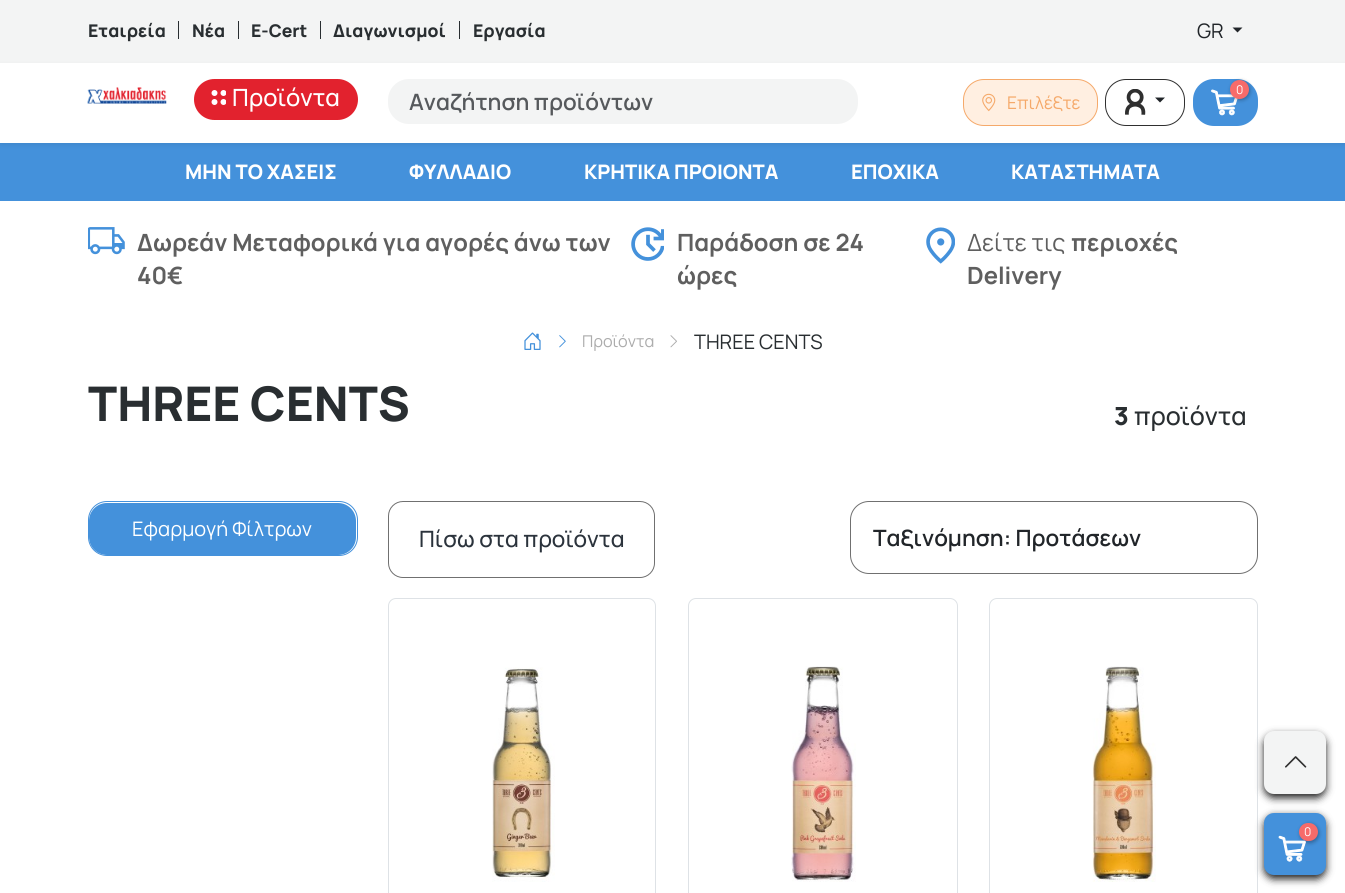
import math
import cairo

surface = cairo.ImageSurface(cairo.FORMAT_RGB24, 1345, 893)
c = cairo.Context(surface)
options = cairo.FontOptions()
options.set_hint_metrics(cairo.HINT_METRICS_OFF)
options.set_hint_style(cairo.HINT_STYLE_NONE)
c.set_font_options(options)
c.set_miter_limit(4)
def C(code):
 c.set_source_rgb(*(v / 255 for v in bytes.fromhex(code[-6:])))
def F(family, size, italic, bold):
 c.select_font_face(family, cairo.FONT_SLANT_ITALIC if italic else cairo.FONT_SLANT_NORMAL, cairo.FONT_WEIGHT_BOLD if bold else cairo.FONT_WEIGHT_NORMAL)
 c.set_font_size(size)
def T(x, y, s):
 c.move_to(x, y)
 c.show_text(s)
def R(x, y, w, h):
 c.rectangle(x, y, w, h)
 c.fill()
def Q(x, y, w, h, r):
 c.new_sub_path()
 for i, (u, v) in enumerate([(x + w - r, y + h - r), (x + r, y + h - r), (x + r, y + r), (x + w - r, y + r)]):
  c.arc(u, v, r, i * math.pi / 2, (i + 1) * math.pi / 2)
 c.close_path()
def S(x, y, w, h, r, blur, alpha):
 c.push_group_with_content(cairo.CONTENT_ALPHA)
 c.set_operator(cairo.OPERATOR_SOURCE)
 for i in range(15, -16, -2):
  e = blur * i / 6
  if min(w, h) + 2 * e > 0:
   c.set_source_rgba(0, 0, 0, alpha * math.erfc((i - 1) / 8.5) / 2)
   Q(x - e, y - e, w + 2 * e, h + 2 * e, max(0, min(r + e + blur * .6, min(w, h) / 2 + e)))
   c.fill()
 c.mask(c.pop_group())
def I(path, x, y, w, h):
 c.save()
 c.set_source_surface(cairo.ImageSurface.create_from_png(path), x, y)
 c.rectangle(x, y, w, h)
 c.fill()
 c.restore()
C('ffffff')
c.paint()
C('f3f4f4')
R(0,0,1345,63)
F('Manrope ExtraBold',17.5,0,0)
C('292e31')
T(88,37,'Εταιρεία')
R(178,21,1,18)
T(192,37,'Νέα')
R(238,21,1,18)
T(251,37,'E-Cert')
R(320,21,1,18)
T(333,37,'Διαγωνισμοί')
R(459,21,1,18)
T(473,37,'Εργασία')
F('Manrope',20,0,0)
C('212529')
T(1197,38,'GR')
c.new_path()
c.move_to(1232.5,27.5)
c.line_to(1242.5,27.5)
c.line_to(1237.5,32.5)
c.close_path()
c.fill()
C('4491db')
R(0,143,1345,58)
C('000000')
S(0,65,1345,80,0,2.5,.07)
C('ffffff')
R(0,63,1345,80)
I('1.png',87,87,80,17)
C('e2222e')
Q(194,79,164,41,20.5)
c.fill()
I('2.png',211,90,15,15)
F('Manrope Medium',23.75,0,0)
C('ffffff')
T(232,106,'Προϊόντα')
C('f3f4f4')
Q(388,79,470,45,21)
c.fill()
F('Manrope SemiBold',22.5,0,0)
C('56595c')
T(409,110,'Αναζήτηση προϊόντων')
C('4491db')
Q(1193,79,65,47,21)
c.fill()
I('3.png',1211,89,27,27)
C('000000')
S(1231,81,19,19,9.5,2,.3)
C('f76b6a')
c.arc(1239.5,89.5,9.5,0,2 * math.pi)
c.fill()
F('Manrope',12,0,0)
C('ffffff')
T(1236,94,'0')
C('ffefe1')
Q(963.5,79.5,134,46,20.5)
c.fill_preserve()
C('f5a96a')
c.set_line_width(1)
c.stroke()
I('4.png',982,93,14,19)
F('Manrope',17.5,0,0)
T(1007,109,'Επιλέξτε')
Q(1105.5,79.5,79,46,20.5)
C('2f2f2f')
c.stroke()
I('5.png',1125,89,21,26)
C('212529')
c.new_path()
c.move_to(1155,97.5)
c.line_to(1165,97.5)
c.line_to(1160,102.5)
c.close_path()
c.fill()
F('Manrope ExtraBold',20,0,0)
C('ffffff')
T(185,179,'ΜΗΝ ΤΟ ΧΑΣΕΙΣ')
T(409,179,'ΦΥΛΛΑΔΙΟ')
T(584,179,'ΚΡΗΤΙΚΑ ΠΡΟΙΟΝΤΑ')
T(851,179,'ΕΠΟΧΙΚΑ')
T(1011,179,'ΚΑΤΑΣΤΗΜΑΤΑ')
I('6.png',88,227,37,28)
F('Manrope',23.75,0,1)
C('5f5f5f')
T(137,251,'Δωρεάν Μεταφορικά για αγορές άνω των')
T(137,284,'40€')
I('7.png',631,227,33,34)
T(677,251,'Παράδοση σε 24')
T(677,284,'ώρες')
I('8.png',926,227,29,37)
F('Manrope',23.75,0,0)
T(967,251,'Δείτε τις')
F('Manrope',23.75,0,1)
T(1071,251,'περιοχές')
T(967,284,'Delivery')
I('9.png',524,332,17,18)
I('10.png',559,335,7,13)
F('Manrope',16.25,0,0)
C('acacac')
T(582,347,'Προϊόντα')
I('11.png',670,335,7,13)
F('Manrope',20,0,0)
C('292e31')
T(694,349,'THREE CENTS')
F('Manrope ExtraBold',47.75,0,0)
T(88,421,'THREE CENTS')
F('Manrope ExtraBold',25,0,0)
T(1114,425,'3')
F('Manrope Medium',25,0,0)
T(1134,425,'προϊόντα')
C('4491db')
Q(89,503,267,52,18)
c.fill()
Q(88.5,501.5,269,54,18.5)
c.stroke()
F('Manrope',20,0,0)
C('ffffff')
T(132,536,'Εφαρμογή Φίλτρων')
Q(388.5,501.5,266,76,14.5)
C('707070')
c.stroke()
F('Manrope Medium',22.5,0,0)
C('2b333c')
T(419,547,'Πίσω στα προϊόντα')
Q(850.5,501.5,407,72,18.5)
C('707070')
c.stroke()
F('Manrope SemiBold',22.5,0,0)
C('212529')
T(873,546,'Ταξινόμηση: Προτάσεων')
Q(388.5,598.5,267,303,7.5)
C('dee2e6')
c.stroke()
I('12.png',492,667,63,215)
Q(688.5,598.5,269,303,7.5)
c.stroke()
I('13.png',791,666,65,216)
Q(989.5,598.5,268,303,7.5)
c.stroke()
I('14.png',1092,666,64,216)
C('222222')
S(1264,735,62,63,10,4,1)
C('f3f4f4')
Q(1264,731,62,63,10)
c.fill()
I('15.png',1285,756,22,12)
C('222222')
S(1264,816,62,63,10,4,1)
C('4491db')
Q(1264,813,62,62,10)
c.fill()
C('000000')
S(1300,824,19,19,9.5,2,.3)
C('f76b6a')
Q(1299,823,19,18,9)
c.fill()
F('Manrope',12,0,0)
C('ffffff')
T(1304,836,'0')
I('16.png',1278,835,28,27)
surface.write_to_png('o.png')
